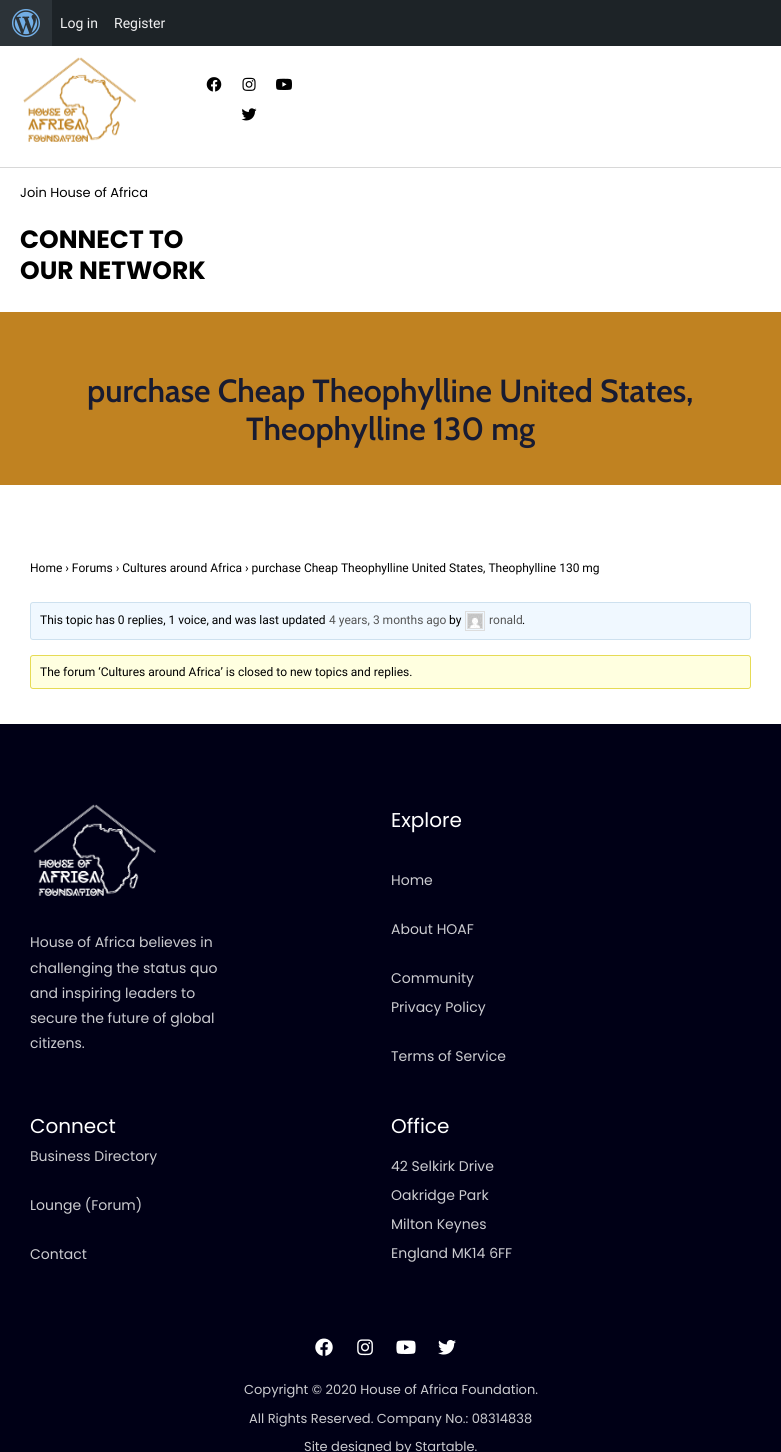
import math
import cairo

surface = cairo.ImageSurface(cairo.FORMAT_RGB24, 781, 1452)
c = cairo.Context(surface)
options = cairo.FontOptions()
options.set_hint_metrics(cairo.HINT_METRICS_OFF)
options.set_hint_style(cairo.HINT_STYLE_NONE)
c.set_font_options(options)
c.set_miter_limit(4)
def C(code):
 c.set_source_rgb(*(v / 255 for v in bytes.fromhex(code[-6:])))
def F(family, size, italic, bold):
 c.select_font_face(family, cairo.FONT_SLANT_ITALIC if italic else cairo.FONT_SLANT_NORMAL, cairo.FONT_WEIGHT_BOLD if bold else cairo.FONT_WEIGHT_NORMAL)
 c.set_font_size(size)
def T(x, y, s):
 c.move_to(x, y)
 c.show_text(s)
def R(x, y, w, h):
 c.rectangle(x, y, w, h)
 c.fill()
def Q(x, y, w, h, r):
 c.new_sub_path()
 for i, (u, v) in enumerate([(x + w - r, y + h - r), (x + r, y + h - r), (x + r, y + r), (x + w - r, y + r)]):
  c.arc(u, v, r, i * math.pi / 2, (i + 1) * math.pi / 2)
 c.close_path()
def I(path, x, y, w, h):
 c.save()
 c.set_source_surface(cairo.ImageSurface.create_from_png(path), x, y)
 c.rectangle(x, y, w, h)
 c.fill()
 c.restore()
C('ffffff')
c.paint()
C('1d2327')
R(52,0,729,46)
C('2c3338')
R(0,0,52,46)
I('1.png',12,9,28,28)
F('Roboto',14,0,0)
C('f0f0f1')
T(60,28,'Log in')
T(114,28,'Register')
C('d8d8d8')
R(0,167,781,1)
I('2.png',23,57,113,85)
I('3.png',206,77,16,15)
I('4.png',242,77,14,14)
I('5.png',276,78,16,12)
I('6.png',241,108,16,13)
F('Poppins',13,0,0)
C('000000')
T(20,197,'Join House of Africa')
F('Poppins',25,0,1)
T(20,248,'CONNECT TO')
T(20,279,'OUR NETWORK')
C('c08221')
R(0,312,781,173)
F('Cabin SemiBold',32,0,0)
C('181b31')
T(87,402,'purchase Cheap Theophylline United States,')
T(246,440,'Theophylline 130 mg')
F('Roboto',12,0,0)
C('000000')
T(30,572,'Home › Forums › Cultures around Africa › purchase Cheap Theophylline United States, Theophylline 130 mg')
C('f0f8ff')
Q(30.5,602.5,720,37,2.5)
c.fill_preserve()
C('cee1ef')
c.set_line_width(1)
c.stroke()
C('000000')
T(40,624,'This topic has 0 replies, 1 voice, and was last updated')
C('555555')
T(329,624,'4 years, 3 months ago')
C('000000')
T(449,624,'by')
c.rectangle(465.5,611.5,19,19)
C('dddddd')
c.stroke()
c.rectangle(467.5,613.5,15,15)
c.stroke()
I('7.png',468,614,14,14)
C('555555')
T(489,624,'ronald')
C('000000')
T(522,624,'.')
C('ffffe0')
Q(30.5,655.5,720,33,2.5)
c.fill_preserve()
C('e6db55')
c.stroke()
C('000000')
T(40,676,'The forum ‘Cultures around Africa’ is closed to new topics and replies.')
C('000016')
R(0,724,781,728)
I('8.png',33,804,123,92)
F('Poppins',14,0,0)
C('ccccd0')
T(30,947,'House of Africa believes in')
T(30,973,'challenging the status quo')
T(30,998,'and inspiring leaders to')
T(30,1023,'secure the future of global')
T(30,1048,'citizens.')
F('Poppins',20,0,0)
C('ffffff')
T(391,827,'Explore')
F('Poppins',14,0,0)
C('ccccd0')
T(391,885,'Home')
T(391,934,'About HOAF')
T(391,983,'Community')
T(391,1012,'Privacy Policy')
T(391,1061,'Terms of Service')
F('Poppins',20,0,0)
C('ffffff')
T(30,1133,'Connect')
F('Poppins',14,0,0)
C('ccccd0')
T(30,1161,'Business Directory')
T(30,1210,'Lounge (Forum)')
T(30,1259,'Contact')
F('Poppins',20,0,0)
C('ffffff')
T(391,1133,'Office')
F('Poppins',14,0,0)
C('ccccd0')
T(391,1171,'42 Selkirk Drive')
T(391,1200,'Oakridge Park')
T(391,1229,'Milton Keynes')
T(391,1258,'England MK14 6FF')
I('9.png',315,1338,18,18)
I('10.png',357,1339,16,17)
I('11.png',396,1340,20,14)
I('12.png',438,1339,18,16)
F('Poppins',13,0,0)
T(244,1394,'Copyright © 2020 House of Africa Foundation.')
T(249,1423,'All Rights Reserved. Company No.: 08314838')
T(304,1451,'Site designed by Startable.')
surface.write_to_png('o.png')
